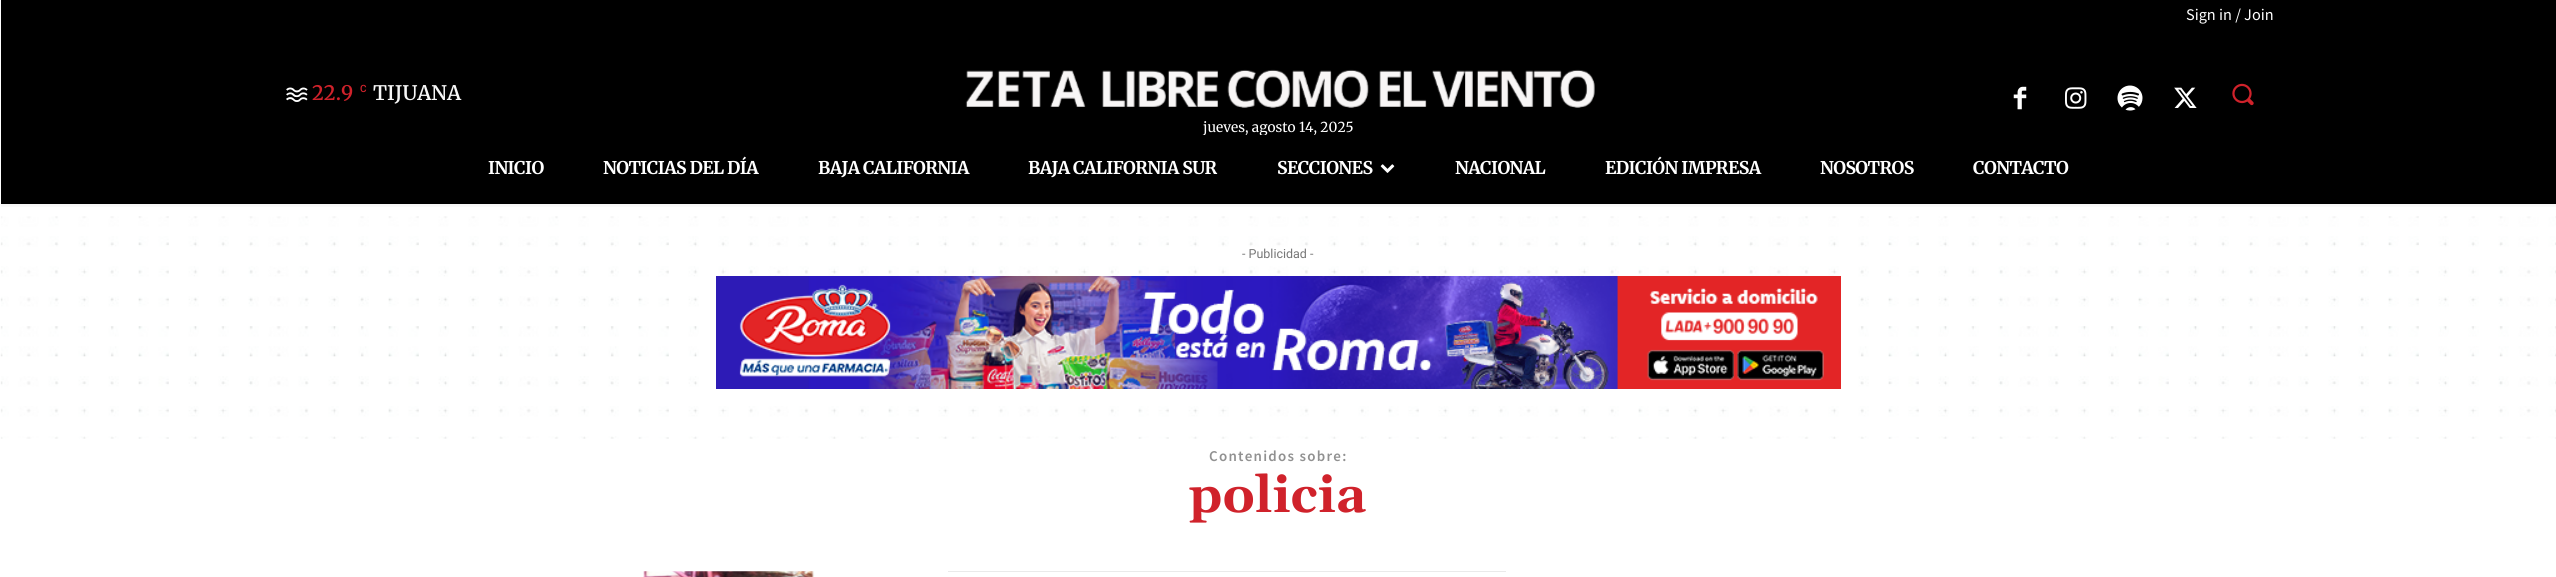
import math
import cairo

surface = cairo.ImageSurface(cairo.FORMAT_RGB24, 2556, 577)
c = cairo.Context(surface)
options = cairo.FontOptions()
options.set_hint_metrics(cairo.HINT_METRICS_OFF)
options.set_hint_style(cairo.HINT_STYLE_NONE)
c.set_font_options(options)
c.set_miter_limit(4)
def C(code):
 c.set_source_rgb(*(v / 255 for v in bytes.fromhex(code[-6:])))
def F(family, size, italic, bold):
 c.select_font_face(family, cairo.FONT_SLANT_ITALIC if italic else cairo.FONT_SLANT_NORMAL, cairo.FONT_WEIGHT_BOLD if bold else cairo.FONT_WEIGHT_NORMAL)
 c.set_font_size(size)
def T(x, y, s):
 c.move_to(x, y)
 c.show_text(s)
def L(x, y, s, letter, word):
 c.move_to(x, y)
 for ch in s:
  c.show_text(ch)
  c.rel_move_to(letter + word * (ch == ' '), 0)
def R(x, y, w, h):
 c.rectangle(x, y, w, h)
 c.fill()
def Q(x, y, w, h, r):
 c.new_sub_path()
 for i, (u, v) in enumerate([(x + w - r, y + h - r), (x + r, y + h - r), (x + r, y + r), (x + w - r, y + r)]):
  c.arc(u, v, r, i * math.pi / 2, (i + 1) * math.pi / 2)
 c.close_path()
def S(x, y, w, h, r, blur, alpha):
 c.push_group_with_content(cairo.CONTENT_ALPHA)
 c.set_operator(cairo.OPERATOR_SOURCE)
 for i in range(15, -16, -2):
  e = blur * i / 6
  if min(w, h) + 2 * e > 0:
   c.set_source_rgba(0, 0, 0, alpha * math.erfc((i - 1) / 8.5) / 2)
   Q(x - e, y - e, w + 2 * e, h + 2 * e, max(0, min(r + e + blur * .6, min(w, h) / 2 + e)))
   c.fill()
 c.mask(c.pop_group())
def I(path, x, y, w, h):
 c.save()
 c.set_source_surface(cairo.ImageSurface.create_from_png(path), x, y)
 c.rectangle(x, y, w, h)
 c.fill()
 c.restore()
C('ffffff')
c.paint()
C('000000')
R(1,0,2555,135)
F('Source Sans Pro',16.25,0,0)
C('ffffff')
T(2186,20,'Sign in / Join')
I('1.png',286,87,22,15)
F('Merriweather SemiBold',20,0,0)
C('d0222b')
T(312,100,'22.9')
F('Roboto Medium',10,0,0)
T(360,92,'C')
F('Merriweather SemiBold',20,0,0)
C('f7f7f7')
T(373,100,'TIJUANA')
I('2.png',2013,86,14,24)
I('3.png',2065,87,22,22)
I('4.png',2117,85,26,26)
I('5.png',2174,87,23,21)
I('6.png',2232,83,22,23)
I('7.png',965,69,630,39)
F('Merriweather',13.75,0,0)
C('ffffff')
T(1203,132,'jueves, agosto 14, 2025')
C('000000')
R(1,135,2555,69)
c.save()
c.rectangle(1,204,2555,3)
c.clip()
C('000000')
S(1,138,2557,68,0,2.5,.06)
c.restore()
F('Merriweather',17.5,0,1)
C('ffffff')
L(488,174,'INICIO',-.6,0)
L(603,174,'NOTICIAS DEL DÍA',-.6,0)
L(818,174,'BAJA CALIFORNIA',-.6,0)
L(1028,174,'BAJA CALIFORNIA SUR',-.6,0)
L(1277,174,'SECCIONES',-.6,0)
I('8.png',1380,164,15,9)
L(1455,174,'NACIONAL',-.6,0)
L(1605,174,'EDICIÓN IMPRESA',-.6,0)
L(1820,174,'NOSOTROS',-.6,0)
L(1973,174,'CONTACTO',-.6,0)
I('9.png',0,216,2556,223)
F('Roboto',12.5,0,0)
C('767676')
T(1242,258,'- Publicidad -')
I('10.png',716,276,1125,113)
F('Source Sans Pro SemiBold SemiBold',15,0,0)
C('919191')
L(1209,461,'Contenidos sobre:',1.25,0)
F('Gelasio',51,0,1)
C('d0222b')
T(1189,512,'policia')
I('11.png',643,571,172,6)
C('eaeaea')
R(948,571,558,1)
surface.write_to_png('o.png')
